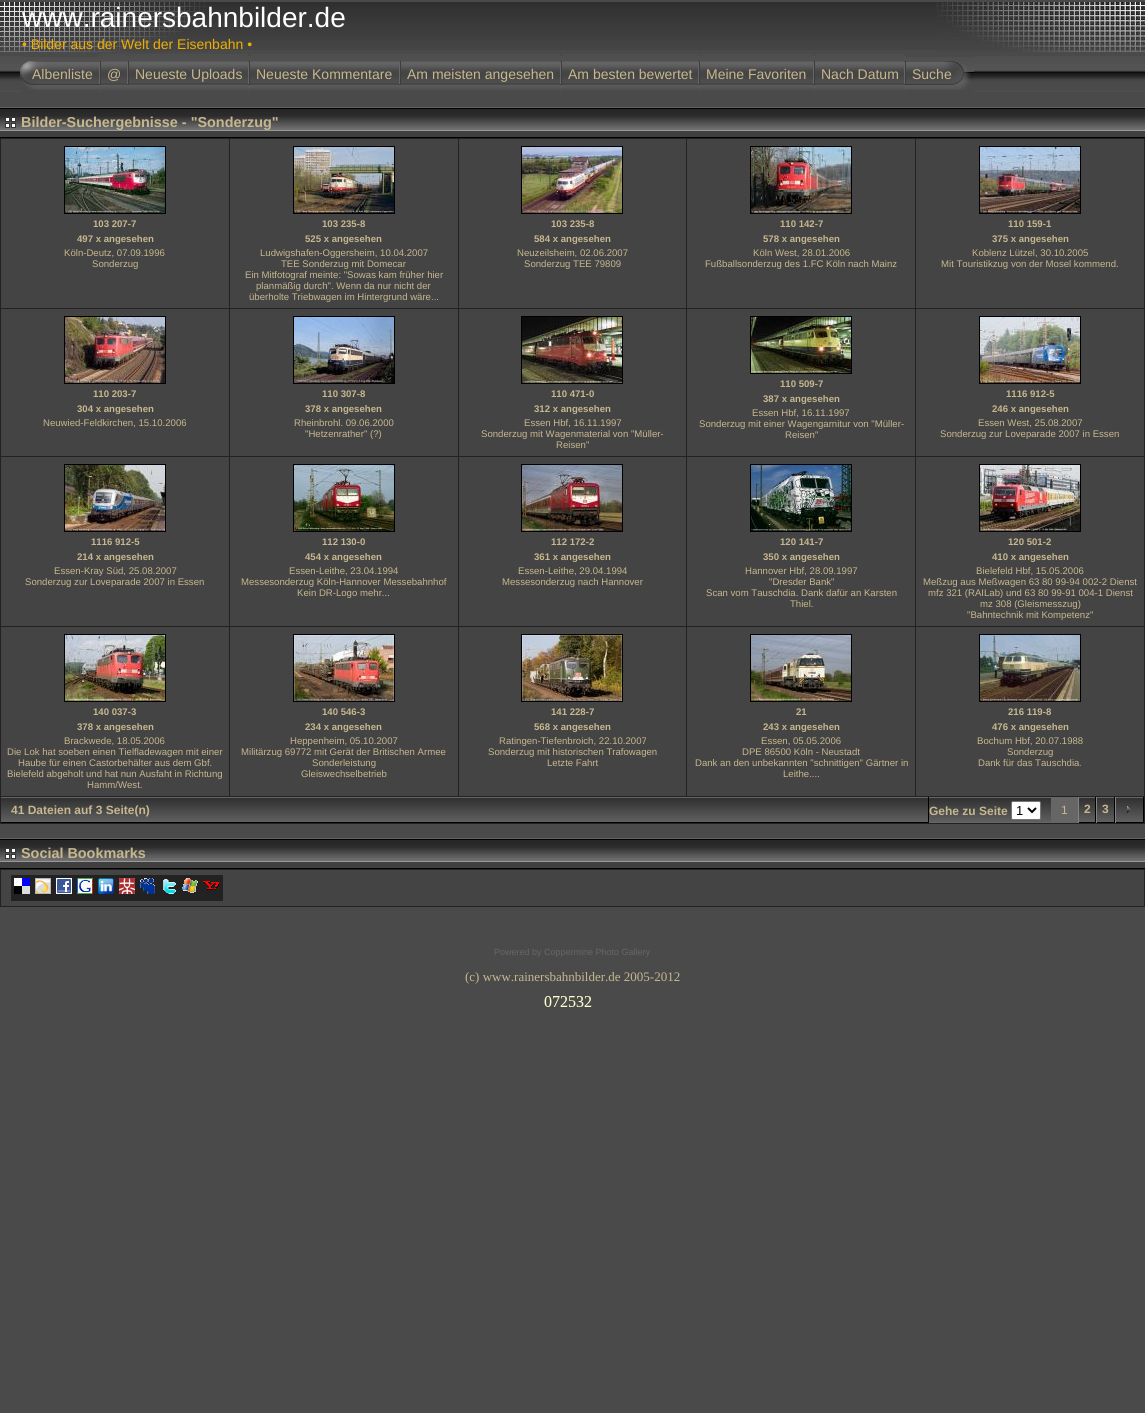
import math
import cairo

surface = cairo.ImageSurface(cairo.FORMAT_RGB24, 1145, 1413)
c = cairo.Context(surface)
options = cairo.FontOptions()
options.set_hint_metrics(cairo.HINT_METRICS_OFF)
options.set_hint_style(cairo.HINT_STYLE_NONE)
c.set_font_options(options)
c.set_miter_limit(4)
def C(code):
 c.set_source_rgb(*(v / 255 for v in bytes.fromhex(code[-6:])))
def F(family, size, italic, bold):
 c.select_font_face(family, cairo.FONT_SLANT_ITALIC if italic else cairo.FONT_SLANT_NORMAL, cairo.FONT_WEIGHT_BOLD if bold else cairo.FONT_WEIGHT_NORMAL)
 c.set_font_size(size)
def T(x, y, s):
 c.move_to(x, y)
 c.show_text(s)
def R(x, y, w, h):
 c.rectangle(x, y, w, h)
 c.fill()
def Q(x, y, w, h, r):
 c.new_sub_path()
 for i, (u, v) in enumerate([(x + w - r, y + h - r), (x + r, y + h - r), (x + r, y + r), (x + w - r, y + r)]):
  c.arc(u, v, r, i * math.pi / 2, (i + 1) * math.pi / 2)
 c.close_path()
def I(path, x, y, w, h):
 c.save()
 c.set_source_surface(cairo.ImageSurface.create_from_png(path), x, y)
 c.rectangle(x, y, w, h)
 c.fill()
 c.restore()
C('4a4a4a')
c.paint()
I('1.png',208,2,728,48)
I('2.png',0,2,208,50)
I('3.png',936,2,209,50)
F('Liberation Sans',28,0,0)
C('ffffff')
T(22,27,'www.rainersbahnbilder.de')
F('Liberation Sans',14,0,0)
C('f0af00')
T(22,49,'• Bilder aus der Welt der Eisenbahn •')
I('4.png',0,56,1145,36)
C('4a4a4a')
R(20,56,79,36)
I('5.png',20,57,79,33)
C('c6b78e')
T(32,79,'Albenliste')
I('6.png',99,61,2,29)
C('4a4a4a')
R(101,91,26,1)
I('7.png',101,54,26,36)
C('c6b78e')
T(107,79,'@')
I('6.png',127,61,2,29)
C('4a4a4a')
R(129,91,119,1)
I('8.png',129,54,119,36)
C('c6b78e')
T(135,79,'Neueste Uploads')
I('6.png',248,61,2,29)
C('4a4a4a')
R(250,91,149,1)
I('9.png',250,54,149,36)
C('c6b78e')
T(256,79,'Neueste Kommentare')
I('6.png',399,61,2,29)
C('4a4a4a')
R(401,91,159,1)
I('10.png',401,54,159,36)
C('c6b78e')
T(407,79,'Am meisten angesehen')
I('6.png',560,61,2,29)
C('4a4a4a')
R(562,91,136,1)
I('11.png',562,54,136,36)
C('c6b78e')
T(568,79,'Am besten bewertet')
I('6.png',698,61,2,29)
C('4a4a4a')
R(700,91,113,1)
I('12.png',700,54,113,36)
C('c6b78e')
T(706,79,'Meine Favoriten')
I('6.png',813,61,2,29)
C('4a4a4a')
R(815,91,89,1)
I('13.png',815,54,89,36)
C('c6b78e')
T(821,79,'Nach Datum')
I('6.png',904,61,2,29)
C('4a4a4a')
R(906,56,68,36)
I('14.png',906,57,68,33)
C('c6b78e')
T(912,79,'Suche')
C('000000')
R(0,137,1145,1)
I('15.png',0,107,21,30)
I('16.png',5,118,11,10)
I('17.png',21,107,1068,30)
F('Liberation Sans',14.4,0,1)
C('c6b78e')
T(21,127,'Bilder-Suchergebnisse - "Sonderzug"')
I('18.png',1089,107,56,30)
C('222222')
R(0,138,1145,686)
C('454444')
R(1,139,228,169)
c.rectangle(64.5,146.5,101,67)
C('000000')
c.set_line_width(1)
c.stroke()
I('19.png',65,147,100,66)
F('Liberation Sans',9.6,0,1)
C('c6b78e')
T(93,227,'103 207-7')
T(77,242,'497 x angesehen')
F('Liberation Sans',9.6,0,0)
T(64,256,'Köln-Deutz, 07.09.1996')
T(92,267,'Sonderzug')
C('454444')
R(230,139,228,169)
c.rectangle(293.5,146.5,101,67)
C('000000')
c.stroke()
I('20.png',294,147,100,66)
F('Liberation Sans',9.6,0,1)
C('c6b78e')
T(322,227,'103 235-8')
T(305,242,'525 x angesehen')
F('Liberation Sans',9.6,0,0)
T(260,256,'Ludwigshafen-Oggersheim, 10.04.2007')
T(281,267,'TEE Sonderzug mit Domecar')
T(245,278,'Ein Mitfotograf meinte: "Sowas kam früher hier')
T(256,289,'planmäßig durch". Wenn da nur nicht der')
T(249,300,'überholte Triebwagen im Hintergrund wäre...')
C('454444')
R(459,139,227,169)
c.rectangle(521.5,146.5,101,67)
C('000000')
c.stroke()
I('21.png',522,147,100,66)
F('Liberation Sans',9.6,0,1)
C('c6b78e')
T(551,227,'103 235-8')
T(534,242,'584 x angesehen')
F('Liberation Sans',9.6,0,0)
T(517,256,'Neuzeilsheim, 02.06.2007')
T(524,267,'Sonderzug TEE 79809')
C('454444')
R(687,139,228,169)
c.rectangle(750.5,146.5,101,67)
C('000000')
c.stroke()
I('22.png',751,147,100,66)
F('Liberation Sans',9.6,0,1)
C('c6b78e')
T(780,227,'110 142-7')
T(763,242,'578 x angesehen')
F('Liberation Sans',9.6,0,0)
T(753,256,'Köln West, 28.01.2006')
T(705,267,'Fußballsonderzug des 1.FC Köln nach Mainz')
C('454444')
R(916,139,228,169)
c.rectangle(979.5,146.5,101,67)
C('000000')
c.stroke()
I('23.png',980,147,100,66)
F('Liberation Sans',9.6,0,1)
C('c6b78e')
T(1008,227,'110 159-1')
T(992,242,'375 x angesehen')
F('Liberation Sans',9.6,0,0)
T(972,256,'Koblenz Lützel, 30.10.2005')
T(941,267,'Mit Touristikzug von der Mosel kommend.')
C('454444')
R(1,309,228,147)
c.rectangle(64.5,316.5,101,67)
C('000000')
c.stroke()
I('24.png',65,317,100,66)
F('Liberation Sans',9.6,0,1)
C('c6b78e')
T(93,397,'110 203-7')
T(77,412,'304 x angesehen')
F('Liberation Sans',9.6,0,0)
T(43,426,'Neuwied-Feldkirchen, 15.10.2006')
C('454444')
R(230,309,228,147)
c.rectangle(293.5,316.5,101,67)
C('000000')
c.stroke()
I('25.png',294,317,100,66)
F('Liberation Sans',9.6,0,1)
C('c6b78e')
T(322,397,'110 307-8')
T(305,412,'378 x angesehen')
F('Liberation Sans',9.6,0,0)
T(294,426,'Rheinbrohl. 09.06.2000')
T(305,437,'"Hetzenrather" (?)')
C('454444')
R(459,309,227,147)
c.rectangle(521.5,316.5,101,67)
C('000000')
c.stroke()
I('26.png',522,317,100,66)
F('Liberation Sans',9.6,0,1)
C('c6b78e')
T(551,397,'110 471-0')
T(534,412,'312 x angesehen')
F('Liberation Sans',9.6,0,0)
T(524,426,'Essen Hbf, 16.11.1997')
T(481,437,'Sonderzug mit Wagenmaterial von "Müller-')
T(556,448,'Reisen"')
C('454444')
R(687,309,228,147)
c.rectangle(750.5,316.5,101,57)
C('000000')
c.stroke()
I('27.png',751,317,100,56)
F('Liberation Sans',9.6,0,1)
C('c6b78e')
T(780,387,'110 509-7')
T(763,402,'387 x angesehen')
F('Liberation Sans',9.6,0,0)
T(752,416,'Essen Hbf, 16.11.1997')
T(699,427,'Sonderzug mit einer Wagengarnitur von "Müller-')
T(785,438,'Reisen"')
C('454444')
R(916,309,228,147)
c.rectangle(979.5,316.5,101,67)
C('000000')
c.stroke()
I('28.png',980,317,100,66)
F('Liberation Sans',9.6,0,1)
C('c6b78e')
T(1006,397,'1116 912-5')
T(992,412,'246 x angesehen')
F('Liberation Sans',9.6,0,0)
T(978,426,'Essen West, 25.08.2007')
T(940,437,'Sonderzug zur Loveparade 2007 in Essen')
C('454444')
R(1,457,228,169)
c.rectangle(64.5,464.5,101,67)
C('000000')
c.stroke()
I('29.png',65,465,100,66)
F('Liberation Sans',9.6,0,1)
C('c6b78e')
T(91,545,'1116 912-5')
T(77,560,'214 x angesehen')
F('Liberation Sans',9.6,0,0)
T(54,574,'Essen-Kray Süd, 25.08.2007')
T(25,585,'Sonderzug zur Loveparade 2007 in Essen')
C('454444')
R(230,457,228,169)
c.rectangle(293.5,464.5,101,67)
C('000000')
c.stroke()
I('30.png',294,465,100,66)
F('Liberation Sans',9.6,0,1)
C('c6b78e')
T(322,545,'112 130-0')
T(305,560,'454 x angesehen')
F('Liberation Sans',9.6,0,0)
T(289,574,'Essen-Leithe, 23.04.1994')
T(241,585,'Messesonderzug Köln-Hannover Messebahnhof')
T(297,596,'Kein DR-Logo mehr...')
C('454444')
R(459,457,227,169)
c.rectangle(521.5,464.5,101,67)
C('000000')
c.stroke()
I('31.png',522,465,100,66)
F('Liberation Sans',9.6,0,1)
C('c6b78e')
T(551,545,'112 172-2')
T(534,560,'361 x angesehen')
F('Liberation Sans',9.6,0,0)
T(518,574,'Essen-Leithe, 29.04.1994')
T(502,585,'Messesonderzug nach Hannover')
C('454444')
R(687,457,228,169)
c.rectangle(750.5,464.5,101,67)
C('000000')
c.stroke()
I('32.png',751,465,100,66)
F('Liberation Sans',9.6,0,1)
C('c6b78e')
T(780,545,'120 141-7')
T(763,560,'350 x angesehen')
F('Liberation Sans',9.6,0,0)
T(745,574,'Hannover Hbf, 28.09.1997')
T(769,585,'"Dresder Bank"')
T(706,596,'Scan vom Tauschdia. Dank dafür an Karsten')
T(790,607,'Thiel.')
C('454444')
R(916,457,228,169)
c.rectangle(979.5,464.5,101,67)
C('000000')
c.stroke()
I('33.png',980,465,100,66)
F('Liberation Sans',9.6,0,1)
C('c6b78e')
T(1008,545,'120 501-2')
T(992,560,'410 x angesehen')
F('Liberation Sans',9.6,0,0)
T(976,574,'Bielefeld Hbf, 15.05.2006')
T(923,585,'Meßzug aus Meßwagen 63 80 99-94 002-2 Dienst')
T(928,596,'mfz 321 (RAILab) und 63 80 99-91 004-1 Dienst')
T(980,607,'mz 308 (Gleismesszug)')
T(967,618,'"Bahntechnik mit Kompetenz"')
C('454444')
R(1,627,228,169)
c.rectangle(64.5,634.5,101,67)
C('000000')
c.stroke()
I('34.png',65,635,100,66)
F('Liberation Sans',9.6,0,1)
C('c6b78e')
T(93,715,'140 037-3')
T(77,730,'378 x angesehen')
F('Liberation Sans',9.6,0,0)
T(64,744,'Brackwede, 18.05.2006')
T(7,755,'Die Lok hat soeben einen Tielfladewagen mit einer')
T(18,766,'Haube für einen Castorbehälter aus dem Gbf.')
T(7,777,'Bielefeld abgeholt und hat nun Ausfaht in Richtung')
T(87,788,'Hamm/West.')
C('454444')
R(230,627,228,169)
c.rectangle(293.5,634.5,101,67)
C('000000')
c.stroke()
I('35.png',294,635,100,66)
F('Liberation Sans',9.6,0,1)
C('c6b78e')
T(322,715,'140 546-3')
T(305,730,'234 x angesehen')
F('Liberation Sans',9.6,0,0)
T(290,744,'Heppenheim, 05.10.2007')
T(241,755,'Militärzug 69772 mit Gerät der Britischen Armee')
T(312,766,'Sonderleistung')
T(301,777,'Gleiswechselbetrieb')
C('454444')
R(459,627,227,169)
c.rectangle(521.5,634.5,101,67)
C('000000')
c.stroke()
I('36.png',522,635,100,66)
F('Liberation Sans',9.6,0,1)
C('c6b78e')
T(551,715,'141 228-7')
T(534,730,'568 x angesehen')
F('Liberation Sans',9.6,0,0)
T(499,744,'Ratingen-Tiefenbroich, 22.10.2007')
T(488,755,'Sonderzug mit historischen Trafowagen')
T(547,766,'Letzte Fahrt')
C('454444')
R(687,627,228,169)
c.rectangle(750.5,634.5,101,67)
C('000000')
c.stroke()
I('37.png',751,635,100,66)
F('Liberation Sans',9.6,0,1)
C('c6b78e')
T(796,715,'21')
T(763,730,'243 x angesehen')
F('Liberation Sans',9.6,0,0)
T(761,744,'Essen, 05.05.2006')
T(742,755,'DPE 86500 Köln - Neustadt')
T(695,766,'Dank an den unbekannten "schnittigen" Gärtner in')
T(783,777,'Leithe....')
C('454444')
R(916,627,228,169)
c.rectangle(979.5,634.5,101,67)
C('000000')
c.stroke()
I('38.png',980,635,100,66)
F('Liberation Sans',9.6,0,1)
C('c6b78e')
T(1008,715,'216 119-8')
T(992,730,'476 x angesehen')
F('Liberation Sans',9.6,0,0)
T(977,744,'Bochum Hbf, 20.07.1988')
T(1007,755,'Sonderzug')
T(978,766,'Dank für das Tauschdia.')
I('39.png',1,797,927,25)
C('000000')
R(928,797,1,26)
R(1,822,928,1)
F('Liberation Sans',12,0,1)
C('c6b78e')
T(11,814,'41 Dateien auf 3 Seite(n)')
I('40.png',929,797,122,26)
T(929,815,'Gehe zu Seite')
C('ffffff')
Q(1011.5,801.5,29,18,1.5)
c.fill_preserve()
C('767676')
c.stroke()
c.new_path()
c.move_to(1028,808)
c.line_to(1032,812)
c.line_to(1036,808)
C('000000')
c.set_line_width(2)
c.stroke()
F('Liberation Sans',13,0,0)
T(1016,815,'1')
C('666666')
R(1051,797,27,26)
F('Liberation Sans',12,0,0)
C('c6b78e')
T(1061,814,'1')
I('41.png',1079,797,16,25)
C('000000')
R(1095,797,1,26)
R(1078,822,18,1)
C('838383')
R(1078,797,1,26)
F('Liberation Sans',12,0,1)
C('c6b78e')
T(1084,813,'2')
I('42.png',1097,797,17,25)
C('000000')
R(1114,797,1,26)
R(1096,822,19,1)
C('838383')
R(1096,797,1,26)
C('c6b78e')
T(1102,813,'3')
I('43.png',1116,797,27,25)
C('000000')
R(1143,797,1,26)
R(1115,822,29,1)
C('838383')
R(1115,797,1,26)
I('44.png',1127,806,4,7)
C('000000')
R(0,868,1145,1)
I('15.png',0,838,21,30)
I('16.png',5,849,11,10)
I('17.png',21,838,1068,30)
F('Liberation Sans',14.4,0,1)
C('c6b78e')
T(21,858,'Social Bookmarks')
I('18.png',1089,838,56,30)
C('222222')
R(0,869,1145,38)
C('454444')
R(1,870,1143,36)
C('222222')
R(11,875,212,26)
I('45.png',14,878,16,16)
I('46.png',35,878,16,16)
I('47.png',56,878,16,16)
I('48.png',77,878,16,16)
I('49.png',98,878,16,16)
I('50.png',119,878,16,16)
I('51.png',140,878,15,16)
I('52.png',163,879,13,15)
I('53.png',182,878,16,15)
I('54.png',203,881,16,9)
F('Liberation Sans',9,0,0)
C('666666')
T(494,955,'Powered by Coppermine Photo Gallery')
F('Liberation Serif',13,0,0)
C('c6b78e')
T(465,981,'(c) www.rainersbahnbilder.de 2005-2012')
I('55.png',544,996,48,11)
surface.write_to_png('o.png')
